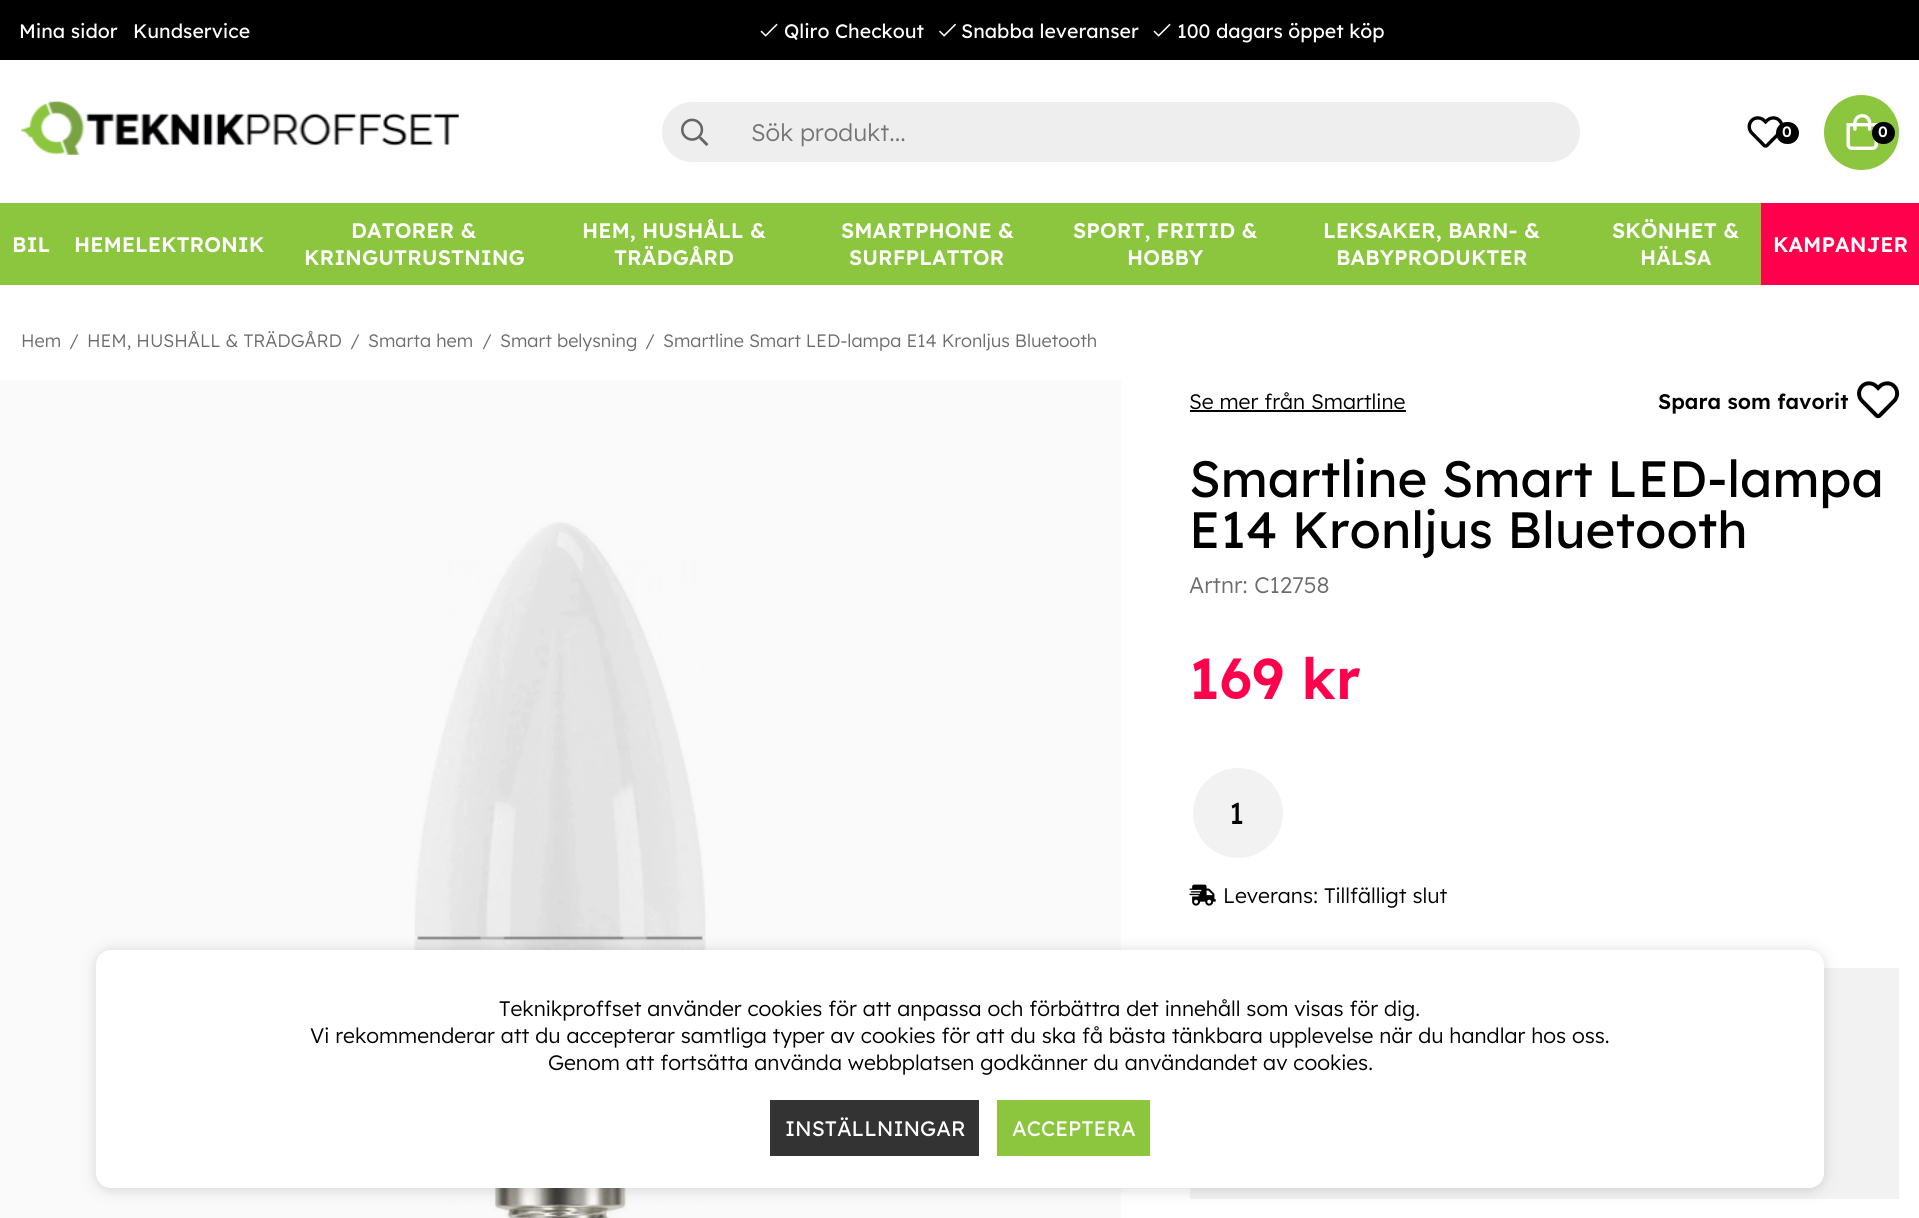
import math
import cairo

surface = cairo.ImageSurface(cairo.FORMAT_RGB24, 1919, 1218)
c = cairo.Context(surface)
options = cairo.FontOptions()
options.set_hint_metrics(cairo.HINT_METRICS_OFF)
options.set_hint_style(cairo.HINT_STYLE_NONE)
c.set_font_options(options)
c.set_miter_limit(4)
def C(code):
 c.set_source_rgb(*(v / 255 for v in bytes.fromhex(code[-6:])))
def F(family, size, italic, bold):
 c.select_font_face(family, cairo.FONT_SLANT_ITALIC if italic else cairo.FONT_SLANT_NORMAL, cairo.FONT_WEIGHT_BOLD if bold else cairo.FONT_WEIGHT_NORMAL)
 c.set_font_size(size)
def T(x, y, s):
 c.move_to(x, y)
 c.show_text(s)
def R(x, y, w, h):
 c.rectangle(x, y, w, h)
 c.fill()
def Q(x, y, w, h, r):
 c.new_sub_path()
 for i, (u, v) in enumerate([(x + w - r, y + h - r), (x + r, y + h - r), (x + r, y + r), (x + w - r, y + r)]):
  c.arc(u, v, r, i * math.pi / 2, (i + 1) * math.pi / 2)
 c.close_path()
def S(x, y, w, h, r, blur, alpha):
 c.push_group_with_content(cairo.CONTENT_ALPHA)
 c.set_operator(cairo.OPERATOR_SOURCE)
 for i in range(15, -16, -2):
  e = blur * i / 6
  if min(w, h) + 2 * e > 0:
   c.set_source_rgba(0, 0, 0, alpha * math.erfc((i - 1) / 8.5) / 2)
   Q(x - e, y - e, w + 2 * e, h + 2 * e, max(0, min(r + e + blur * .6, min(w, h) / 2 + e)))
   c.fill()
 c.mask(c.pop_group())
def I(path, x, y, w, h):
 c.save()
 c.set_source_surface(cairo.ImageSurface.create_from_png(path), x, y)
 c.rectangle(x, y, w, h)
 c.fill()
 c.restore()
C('ffffff')
c.paint()
C('fafafa')
R(0,380,1121,838)
C('000000')
R(0,0,1919,60)
F('Lexend Medium',19.5,0,0)
C('ffffff')
T(19,38,'Mina sidor')
T(133,38,'Kundservice')
I('1.png',760,23,18,14)
T(784,38,'Qliro Checkout')
I('2.png',939,23,17,14)
T(961,38,'Snabba leveranser')
I('1.png',1153,23,18,14)
T(1177,38,'100 dagars öppet köp')
I('3.png',21,101,438,54)
C('eeeeee')
Q(662,102,918,60,30)
c.fill()
I('4.png',681,118,28,28)
F('Lexend',24,0,0)
C('757575')
T(751,141,'Sök produkt...')
I('5.png',1747,116,36,32)
C('000000')
Q(1776,122,23,22,11)
c.fill()
F('Lexend SemiBold',15,0,0)
C('ffffff')
T(1782,137,'0')
C('8cc63f')
c.new_path()
c.arc(1861.5,132.5,37.5,0,2 * math.pi)
c.fill()
I('6.png',1846,114,32,36)
C('000000')
Q(1872,122,23,22,11)
c.fill()
C('ffffff')
T(1878,137,'0')
C('8cc63f')
R(0,203,1761,82)
F('Lexend SemiBold',21,0,0)
C('ffffff')
T(12,252,'BIL')
T(74,252,'HEMELEKTRONIK')
T(351,238,'DATORER &')
T(304,265,'KRINGUTRUSTNING')
T(582,238,'HEM, HUSHÅLL &')
T(614,265,'TRÄDGÅRD')
T(841,238,'SMARTPHONE &')
T(849,265,'SURFPLATTOR')
T(1073,238,'SPORT, FRITID &')
T(1127,265,'HOBBY')
T(1323,238,'LEKSAKER, BARN- &')
T(1336,265,'BABYPRODUKTER')
T(1612,238,'SKÖNHET &')
T(1640,265,'HÄLSA')
C('ff004c')
R(1761,203,158,82)
C('ffffff')
T(1773,252,'KAMPANJER')
F('Lexend',18,0,0)
C('6d6b6b')
T(21,347,'Hem')
T(69,347,'/')
T(87,347,'HEM, HUSHÅLL & TRÄDGÅRD')
T(350,347,'/')
T(368,347,'Smarta hem')
T(482,347,'/')
T(500,347,'Smart belysning')
T(645,347,'/')
T(663,347,'Smartline Smart LED-lampa E14 Kronljus Bluetooth')
I('7.png',414,522,292,696)
F('Lexend',21,0,0)
C('000000')
T(1189,409,'Se mer från Smartline')
R(1190,410,216,2)
F('Lexend SemiBold',21,0,0)
T(1658,409,'Spara som favorit')
I('8.png',1857,381,43,38)
F('Lexend Medium',51,0,0)
T(1189,497,'Smartline Smart LED-lampa')
T(1189,548,'E14 Kronljus Bluetooth')
F('Lexend',22.5,0,0)
C('6d6b6b')
T(1189,593,'Artnr: C12758')
F('Lexend SemiBold',57,0,0)
C('ff004c')
T(1189,699,'169 kr')
C('f2f2f2')
c.new_path()
c.arc(1238,813,45,0,2 * math.pi)
c.fill()
F('Lexend Medium',30,0,0)
C('000000')
T(1229,824,'1')
I('9.png',1189,884,27,22)
F('Lexend',21,0,0)
T(1223,903,'Leverans: Tillfälligt slut')
C('f2f2f2')
R(1190,968,709,231)
C('212326')
S(96,951,1728,239,15,7.5,.17)
C('ffffff')
Q(96,950,1728,238,15)
c.fill()
C('000000')
T(499,1016,'Teknikproffset använder cookies för att anpassa och förbättra det innehåll som visas för dig.')
T(310,1043,'Vi rekommenderar att du accepterar samtliga typer av cookies för att du ska få bästa tänkbara upplevelse när du handlar hos oss.')
T(548,1070,'Genom att fortsätta använda webbplatsen godkänner du användandet av cookies.')
C('333333')
R(770,1100,209,56)
F('Lexend Medium',21,0,0)
C('ffffff')
T(785,1136,'INSTÄLLNINGAR')
C('8cc63f')
R(997,1100,153,56)
C('ffffff')
T(1012,1136,'ACCEPTERA')
surface.write_to_png('o.png')
